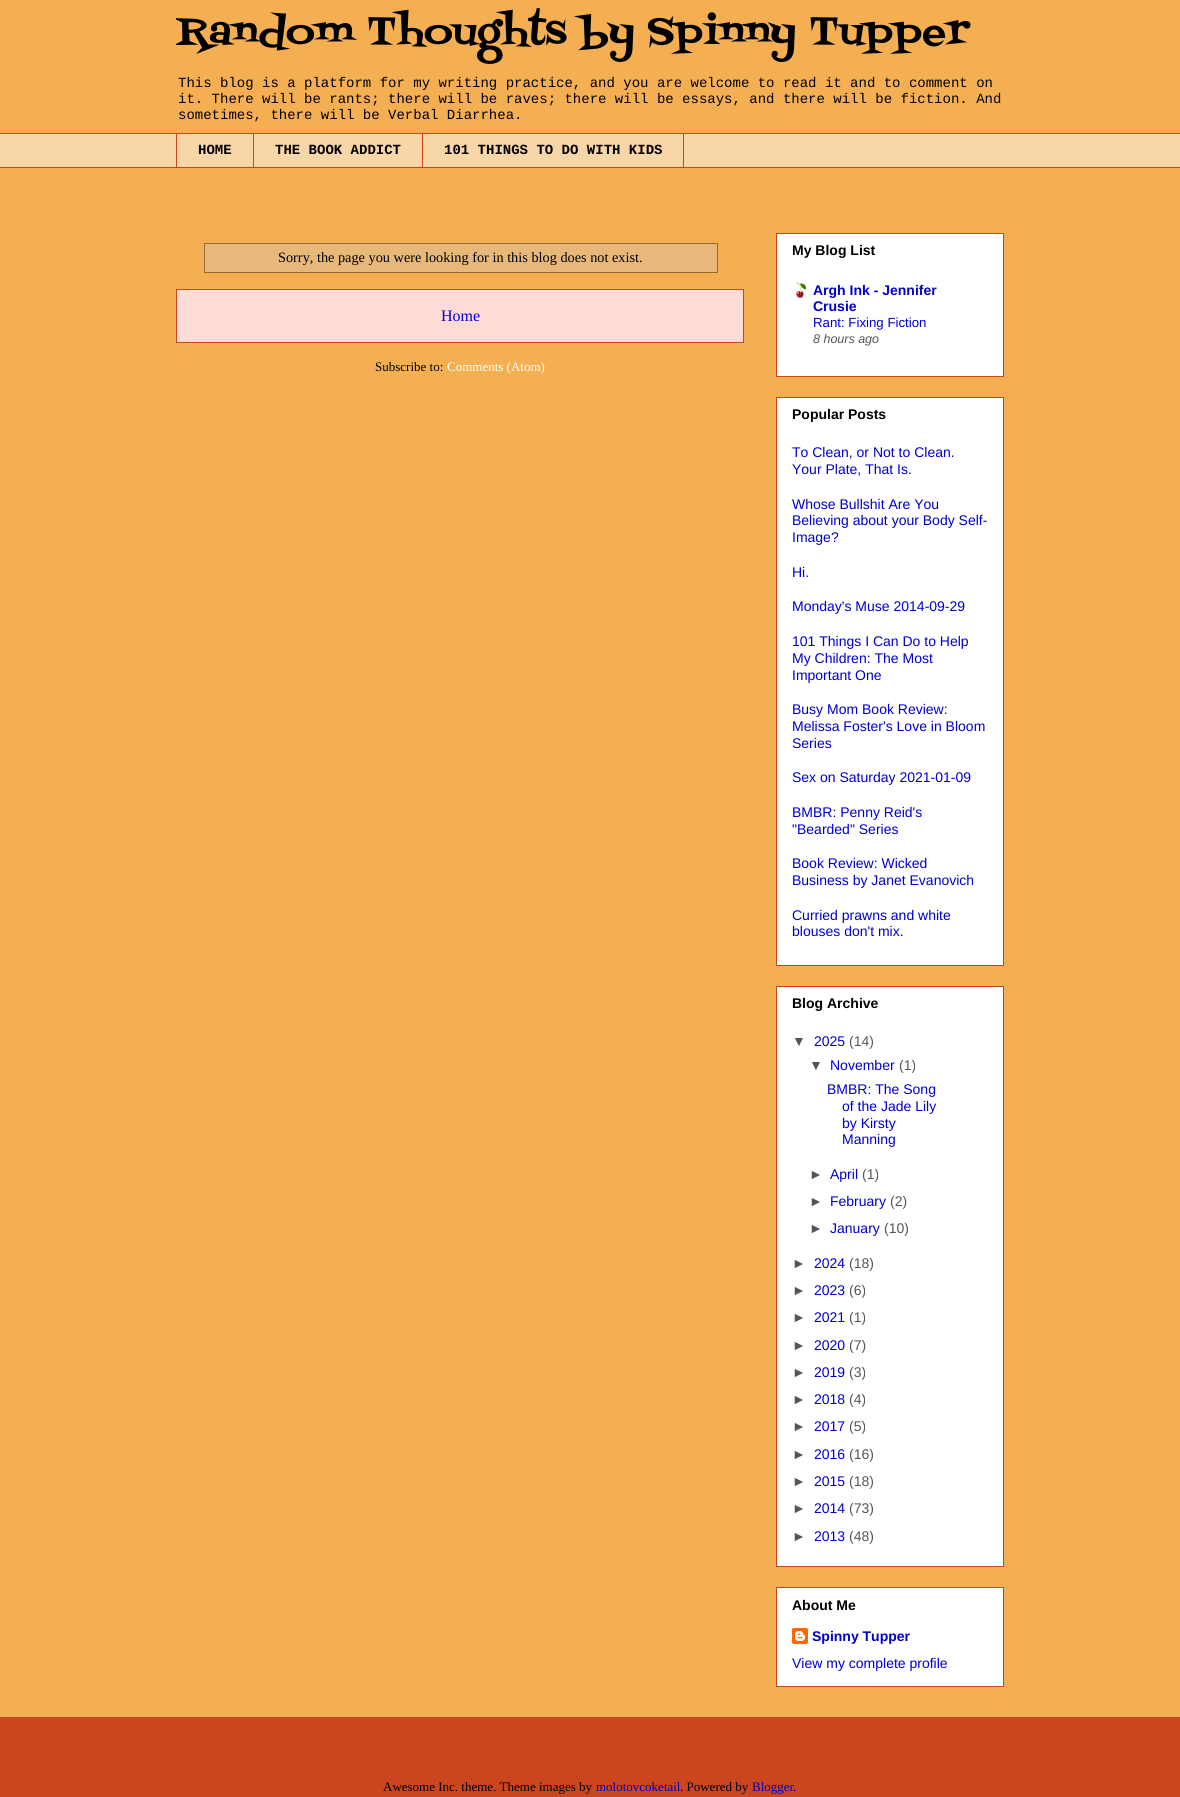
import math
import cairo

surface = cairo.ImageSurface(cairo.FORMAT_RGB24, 1180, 1797)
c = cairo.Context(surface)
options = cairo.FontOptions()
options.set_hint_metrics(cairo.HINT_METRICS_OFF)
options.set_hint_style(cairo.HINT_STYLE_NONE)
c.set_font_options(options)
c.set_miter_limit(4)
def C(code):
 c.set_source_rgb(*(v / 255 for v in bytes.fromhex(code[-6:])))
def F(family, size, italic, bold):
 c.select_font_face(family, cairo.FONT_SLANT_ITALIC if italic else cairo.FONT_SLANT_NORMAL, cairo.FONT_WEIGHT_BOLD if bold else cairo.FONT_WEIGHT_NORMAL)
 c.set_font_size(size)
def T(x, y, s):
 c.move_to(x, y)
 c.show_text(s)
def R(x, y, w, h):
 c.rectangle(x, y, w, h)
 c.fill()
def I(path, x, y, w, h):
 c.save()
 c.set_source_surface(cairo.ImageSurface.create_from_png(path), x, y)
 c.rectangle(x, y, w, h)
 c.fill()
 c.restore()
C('f4af52')
c.paint()
c.save()
c.rectangle(176,0,828,133)
c.clip()
F('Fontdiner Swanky',40,0,0)
C('000000')
T(176,44,'Random Thoughts by Spinny Tupper')
c.restore()
F('Liberation Mono',14,0,0)
C('000000')
T(178,87,'This blog is a platform for my writing practice, and you are welcome to read it and to comment on')
T(178,103,'it. There will be rants; there will be raves; there will be essays, and there will be fiction. And')
T(178,119,'sometimes, there will be Verbal Diarrhea.')
C('f9d6a7')
R(0,134,1180,33)
C('cb451f')
R(0,133,1180,1)
R(176,133,1,35)
F('Liberation Mono',14,0,1)
C('000000')
T(198,154,'HOME')
C('cb451f')
R(253,133,1,35)
C('000000')
T(275,154,'THE BOOK ADDICT')
c.rectangle(422.5,133.5,261,34)
C('cb451f')
c.set_line_width(1)
c.stroke()
C('000000')
T(444,154,'101 THINGS TO DO WITH KIDS')
C('cb451f')
R(0,167,1180,1)
c.rectangle(204.5,243.5,513,29)
C('926931')
c.stroke()
C('e7b879')
R(205,244,512,28)
F('Liberation Serif',14.3,0,0)
C('000000')
T(278,262,'Sorry, the page you were looking for in this blog does not exist.')
C('ffdbd7')
c.rectangle(176.5,289.5,567,53)
c.fill_preserve()
C('cb451f')
c.stroke()
F('Liberation Serif',16,0,0)
C('0000cc')
T(441,321,'Home')
F('Liberation Serif',13,0,0)
C('000000')
T(375,371,'Subscribe to:')
C('ffffff')
T(447,371,'Comments (Atom)')
c.rectangle(776.5,233.5,227,143)
c.fill_preserve()
C('cb451f')
c.stroke()
F('Liberation Sans',14,0,1)
C('000000')
T(792,255,'My Blog List')
I('1.png',796,282,10,16)
C('0000cc')
T(813,295,'Argh Ink - Jennifer')
T(813,311,'Crusie')
F('Liberation Sans',13.25,0,0)
T(813,327,'Rant: Fixing Fiction')
F('Liberation Sans',12.5,1,0)
C('555555')
T(813,343,'8 hours ago')
C('ffffff')
c.rectangle(776.5,397.5,227,568)
c.fill_preserve()
C('cb451f')
c.stroke()
F('Liberation Sans',14,0,1)
C('000000')
T(792,419,'Popular Posts')
F('Liberation Sans',14,0,0)
C('0000cc')
T(792,457,'To Clean, or Not to Clean.')
T(792,474,'Your Plate, That Is.')
T(792,509,'Whose Bullshit Are You')
T(792,525,'Believing about your Body Self-')
T(792,542,'Image?')
T(792,577,'Hi.')
T(792,611,'Monday\'s Muse 2014-09-29')
T(792,646,'101 Things I Can Do to Help')
T(792,663,'My Children: The Most')
T(792,680,'Important One')
T(792,714,'Busy Mom Book Review:')
T(792,731,'Melissa Foster\'s Love in Bloom')
T(792,748,'Series')
T(792,782,'Sex on Saturday 2021-01-09')
T(792,817,'BMBR: Penny Reid\'s')
T(792,834,'"Bearded" Series')
T(792,868,'Book Review: Wicked')
T(792,885,'Business by Janet Evanovich')
T(792,920,'Curried prawns and white')
T(792,936,'blouses don\'t mix.')
C('ffffff')
c.rectangle(776.5,986.5,227,580)
c.fill_preserve()
C('cb451f')
c.stroke()
F('Liberation Sans',14,0,1)
C('000000')
T(792,1008,'Blog Archive')
F('Liberation Sans',14,0,0)
C('555555')
T(792,1046,'▼')
C('0000cc')
T(814,1046,'2025')
C('555555')
T(849,1046,'(14)')
T(809,1070,'▼')
C('0000cc')
T(830,1070,'November')
C('555555')
T(899,1070,'(1)')
C('0000cc')
T(827,1094,'BMBR: The Song')
T(842,1111,'of the Jade Lily')
T(842,1128,'by Kirsty')
T(842,1144,'Manning')
C('555555')
T(809,1179,'►')
C('0000cc')
T(830,1179,'April')
C('555555')
T(862,1179,'(1)')
T(809,1206,'►')
C('0000cc')
T(830,1206,'February')
C('555555')
T(890,1206,'(2)')
T(809,1233,'►')
C('0000cc')
T(830,1233,'January')
C('555555')
T(884,1233,'(10)')
T(792,1268,'►')
C('0000cc')
T(814,1268,'2024')
C('555555')
T(849,1268,'(18)')
T(792,1295,'►')
C('0000cc')
T(814,1295,'2023')
C('555555')
T(849,1295,'(6)')
T(792,1322,'►')
C('0000cc')
T(814,1322,'2021')
C('555555')
T(849,1322,'(1)')
T(792,1350,'►')
C('0000cc')
T(814,1350,'2020')
C('555555')
T(849,1350,'(7)')
T(792,1377,'►')
C('0000cc')
T(814,1377,'2019')
C('555555')
T(849,1377,'(3)')
T(792,1404,'►')
C('0000cc')
T(814,1404,'2018')
C('555555')
T(849,1404,'(4)')
T(792,1431,'►')
C('0000cc')
T(814,1431,'2017')
C('555555')
T(849,1431,'(5)')
T(792,1459,'►')
C('0000cc')
T(814,1459,'2016')
C('555555')
T(849,1459,'(16)')
T(792,1486,'►')
C('0000cc')
T(814,1486,'2015')
C('555555')
T(849,1486,'(18)')
T(792,1513,'►')
C('0000cc')
T(814,1513,'2014')
C('555555')
T(849,1513,'(73)')
T(792,1541,'►')
C('0000cc')
T(814,1541,'2013')
C('555555')
T(849,1541,'(48)')
C('ffffff')
c.rectangle(776.5,1587.5,227,99)
c.fill_preserve()
C('cb451f')
c.stroke()
F('Liberation Sans',14,0,1)
C('000000')
T(792,1610,'About Me')
I('2.png',792,1628,16,16)
C('0000cc')
T(812,1641,'Spinny Tupper')
F('Liberation Sans',14,0,0)
T(792,1668,'View my complete profile')
C('cb451f')
R(0,1717,1180,80)
F('Liberation Serif',13,0,0)
C('000000')
T(383,1791,'Awesome Inc. theme. Theme images by')
C('0000cc')
T(596,1791,'molotovcoketail')
C('000000')
T(680,1791,'. Powered by')
C('0000cc')
T(752,1791,'Blogger')
C('000000')
T(793,1791,'.')
surface.write_to_png('o.png')
